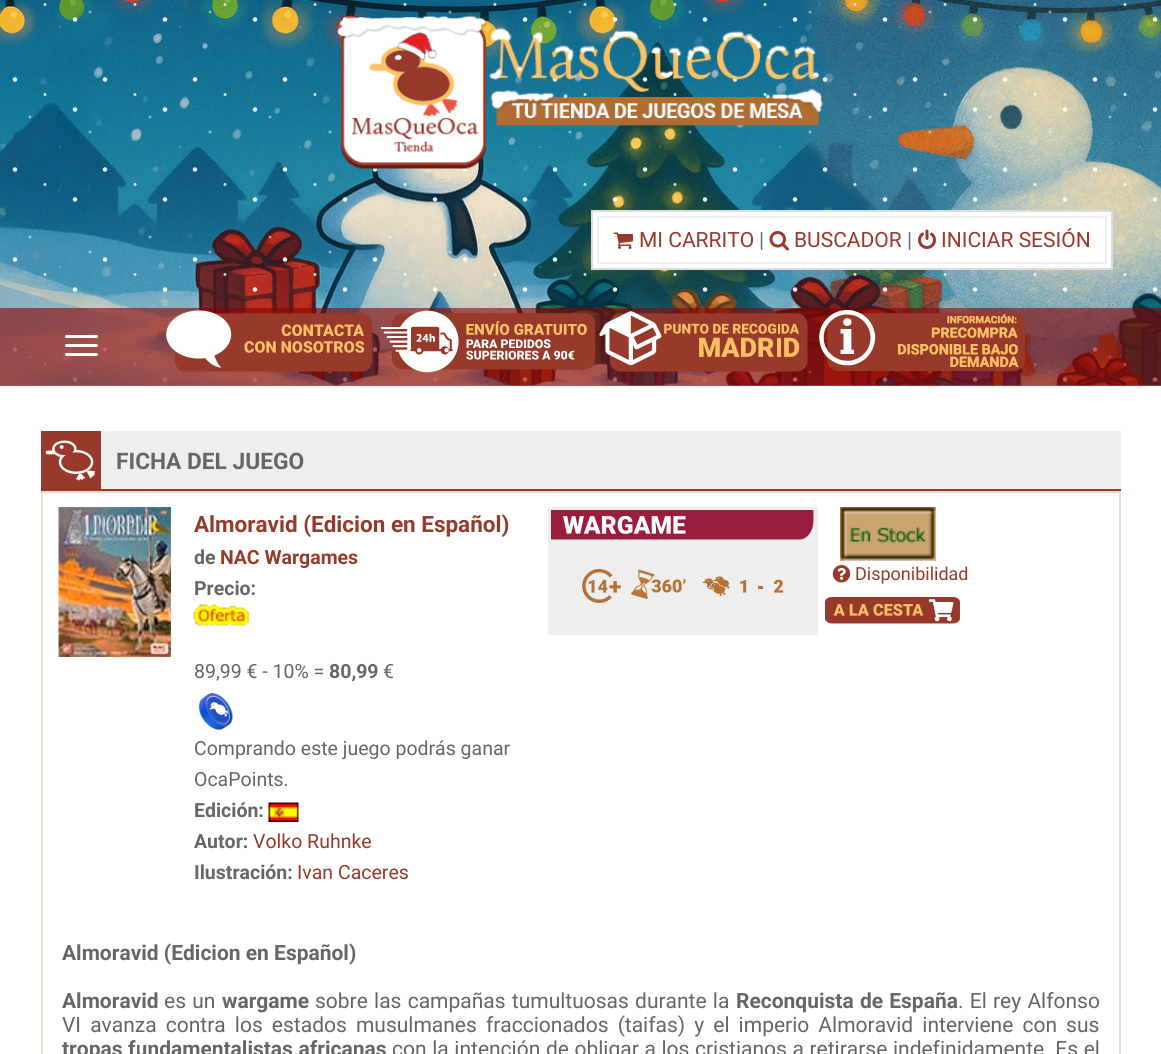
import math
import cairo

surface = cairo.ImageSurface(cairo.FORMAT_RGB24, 1161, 1054)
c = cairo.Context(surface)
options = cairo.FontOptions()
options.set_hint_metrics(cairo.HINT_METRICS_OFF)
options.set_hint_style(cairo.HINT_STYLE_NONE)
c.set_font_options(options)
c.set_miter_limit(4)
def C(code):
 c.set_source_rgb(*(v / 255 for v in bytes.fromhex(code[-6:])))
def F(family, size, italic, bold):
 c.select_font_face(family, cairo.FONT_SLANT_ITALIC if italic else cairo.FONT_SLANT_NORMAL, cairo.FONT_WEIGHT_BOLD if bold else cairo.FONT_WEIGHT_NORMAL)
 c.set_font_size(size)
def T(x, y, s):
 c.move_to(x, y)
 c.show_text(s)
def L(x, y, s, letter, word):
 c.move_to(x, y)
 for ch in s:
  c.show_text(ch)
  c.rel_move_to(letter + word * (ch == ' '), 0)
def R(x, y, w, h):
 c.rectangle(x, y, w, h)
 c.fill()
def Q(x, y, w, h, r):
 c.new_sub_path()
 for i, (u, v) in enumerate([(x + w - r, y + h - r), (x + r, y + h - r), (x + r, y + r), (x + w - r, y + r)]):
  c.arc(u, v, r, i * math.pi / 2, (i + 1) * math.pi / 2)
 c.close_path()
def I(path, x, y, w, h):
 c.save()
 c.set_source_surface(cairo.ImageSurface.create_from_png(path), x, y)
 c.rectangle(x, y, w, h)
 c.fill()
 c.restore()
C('ffffff')
c.paint()
I('1.png',0,0,1161,386)
c.new_path()
c.move_to(75,19.5)
c.line_to(1155.3,19.5)
c.set_source_rgba(1,1,1,0.9)
c.set_line_width(4.5)
c.set_line_cap(cairo.LINE_CAP_ROUND)
c.set_dash([0,90])
c.stroke()
c.new_path()
c.move_to(75,109.5)
c.line_to(1155.3,109.5)
c.stroke()
c.new_path()
c.move_to(75,199.5)
c.line_to(1155.3,199.5)
c.stroke()
c.new_path()
c.move_to(75,289.5)
c.line_to(1155.3,289.5)
c.stroke()
c.new_path()
c.move_to(75,379.5)
c.line_to(1155.3,379.5)
c.stroke()
c.new_path()
c.move_to(45,4.5)
c.line_to(1125.3,4.5)
c.set_source_rgba(1,1,1,0.8)
c.set_line_width(3)
c.stroke()
c.new_path()
c.move_to(45,94.5)
c.line_to(1125.3,94.5)
c.stroke()
c.new_path()
c.move_to(45,184.5)
c.line_to(1125.3,184.5)
c.stroke()
c.new_path()
c.move_to(45,274.5)
c.line_to(1125.3,274.5)
c.stroke()
c.new_path()
c.move_to(45,364.5)
c.line_to(1125.3,364.5)
c.stroke()
c.new_path()
c.move_to(15,79.5)
c.line_to(1095.3,79.5)
c.set_source_rgba(1,1,1,0.9)
c.set_line_width(4.5)
c.stroke()
c.new_path()
c.move_to(15,169.5)
c.line_to(1095.3,169.5)
c.stroke()
c.new_path()
c.move_to(15,259.5)
c.line_to(1095.3,259.5)
c.stroke()
c.new_path()
c.move_to(15,349.5)
c.line_to(1095.3,349.5)
c.stroke()
c.new_path()
c.move_to(90,12)
c.line_to(1050.3,12)
c.set_source_rgba(1,1,1,0.49)
c.set_line_width(3)
c.set_dash([0,120])
c.stroke()
c.new_path()
c.move_to(90,132)
c.line_to(1050.3,132)
c.stroke()
c.new_path()
c.move_to(90,252)
c.line_to(1050.3,252)
c.stroke()
c.new_path()
c.move_to(90,372)
c.line_to(1050.3,372)
c.stroke()
c.new_path()
c.move_to(60,27)
c.line_to(1140.3,27)
c.set_source_rgba(1,1,1,0.42)
c.set_line_width(1.5)
c.stroke()
c.new_path()
c.move_to(60,147)
c.line_to(1140.3,147)
c.stroke()
c.new_path()
c.move_to(60,267)
c.line_to(1140.3,267)
c.stroke()
c.new_path()
c.move_to(30,117)
c.line_to(1110.3,117)
c.set_source_rgba(1,1,1,0.49)
c.set_line_width(3)
c.stroke()
c.new_path()
c.move_to(30,237)
c.line_to(1110.3,237)
c.stroke()
c.new_path()
c.move_to(30,357)
c.line_to(1110.3,357)
c.stroke()
I('2.png',337,15,487,154)
C('ffffff')
c.rectangle(592,211,520,58)
c.fill_preserve()
C('dddddd')
c.set_line_width(2)
c.set_line_cap(cairo.LINE_CAP_BUTT)
c.set_dash([])
c.stroke()
c.rectangle(598,217,508,46)
C('eeeeee')
c.stroke()
I('3.png',613,232,20,17)
F('Roboto',21,0,0)
C('973a2b')
T(639,247,'MI CARRITO')
C('666666')
T(759,247,'|')
I('4.png',769,231,20,20)
C('973a2b')
T(794,247,'BUSCADOR')
C('666666')
T(907,247,'|')
I('5.png',918,229,18,20)
C('973a2b')
T(941,247,'INICIAR SESIÓN')
c.set_source_rgba(0.545,0,0,0.6)
R(0,308,1161,78)
C('ffffff')
Q(65,335,33,3,1.5)
c.fill()
Q(65,344,33,3,1.5)
c.fill()
Q(65,353,33,3,1.5)
c.fill()
I('6.png',166,310,207,62)
I('7.png',380,310,216,63)
I('8.png',599,311,209,61)
I('9.png',819,310,206,61)
C('eeeeee')
R(101,431,1020,58)
C('973a2b')
R(41,489,1080,2)
R(41,431,60,58)
I('10.png',45,440,51,41)
F('Roboto',22.75,0,1)
C('666666')
T(116,469,'FICHA DEL JUEGO')
c.rectangle(42,492,1078,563)
C('ebdbcc')
c.stroke()
I('11.png',58,507,113,150)
F('Roboto',22.5,0,1)
C('973a2b')
T(194,532,'Almoravid (Edicion en Español)')
F('Roboto',19.5,0,1)
C('666666')
T(194,564,'de')
C('973a2b')
T(220,564,'NAC Wargames')
C('666666')
T(194,595,'Precio:')
I('12.png',193,604,56,22)
F('Roboto',19.5,0,0)
T(194,678,'89,99 € - 10% =')
F('Roboto',19.5,0,1)
T(329,678,'80,99')
F('Roboto',19.5,0,0)
T(383,678,'€')
I('13.png',198,693,36,37)
T(194,755,'Comprando este juego podrás ganar')
T(194,786,'OcaPoints.')
F('Roboto',19.5,0,1)
T(194,817,'Edición:')
I('14.png',268,802,31,20)
T(194,848,'Autor:')
F('Roboto',19.5,0,0)
C('973a2b')
T(253,848,'Volko Ruhnke')
F('Roboto',19.5,0,1)
C('666666')
T(194,879,'Ilustración:')
F('Roboto',19.5,0,0)
C('973a2b')
T(297,879,'Ivan Caceres')
C('eeeeee')
R(548,507,270,128)
I('15.png',551,510,263,30)
I('16.png',582,568,39,35)
I('17.png',631,569,55,30)
I('18.png',702,576,28,20)
I('19.png',740,579,7,14)
C('b47234')
R(758,586,5,3)
I('20.png',773,579,10,14)
I('21.png',840,507,96,54)
I('22.png',832,565,19,18)
F('Roboto',18,0,0)
C('973a2b')
T(855,580,'Disponibilidad')
I('23.png',825,597,135,27)
F('Roboto',21,0,1)
C('666666')
T(62,960,'Almoravid (Edicion en Español)')
T(62,1008,'Almoravid')
F('Roboto',21,0,0)
L(164,1008,'es un',0,1)
F('Roboto',21,0,1)
T(222,1008,'wargame')
F('Roboto',21,0,0)
L(315,1008,'sobre las campañas tumultuosas durante la',0,1)
F('Roboto',21,0,1)
L(736,1008,'Reconquista de España',0,1)
F('Roboto',21,0,0)
L(958,1008,'. El rey Alfonso',0,1)
L(62,1032,'VI avanza contra los estados musulmanes fraccionados (taifas) y el imperio Almoravid interviene con sus',0,3.9)
F('Roboto',21,0,1)
L(62,1056,'tropas fundamentalistas africanas',0,.4)
F('Roboto',21,0,0)
L(392,1056,'con la intención de obligar a los cristianos a retirarse indefinidamente. Es el',0,.4)
surface.write_to_png('o.png')
